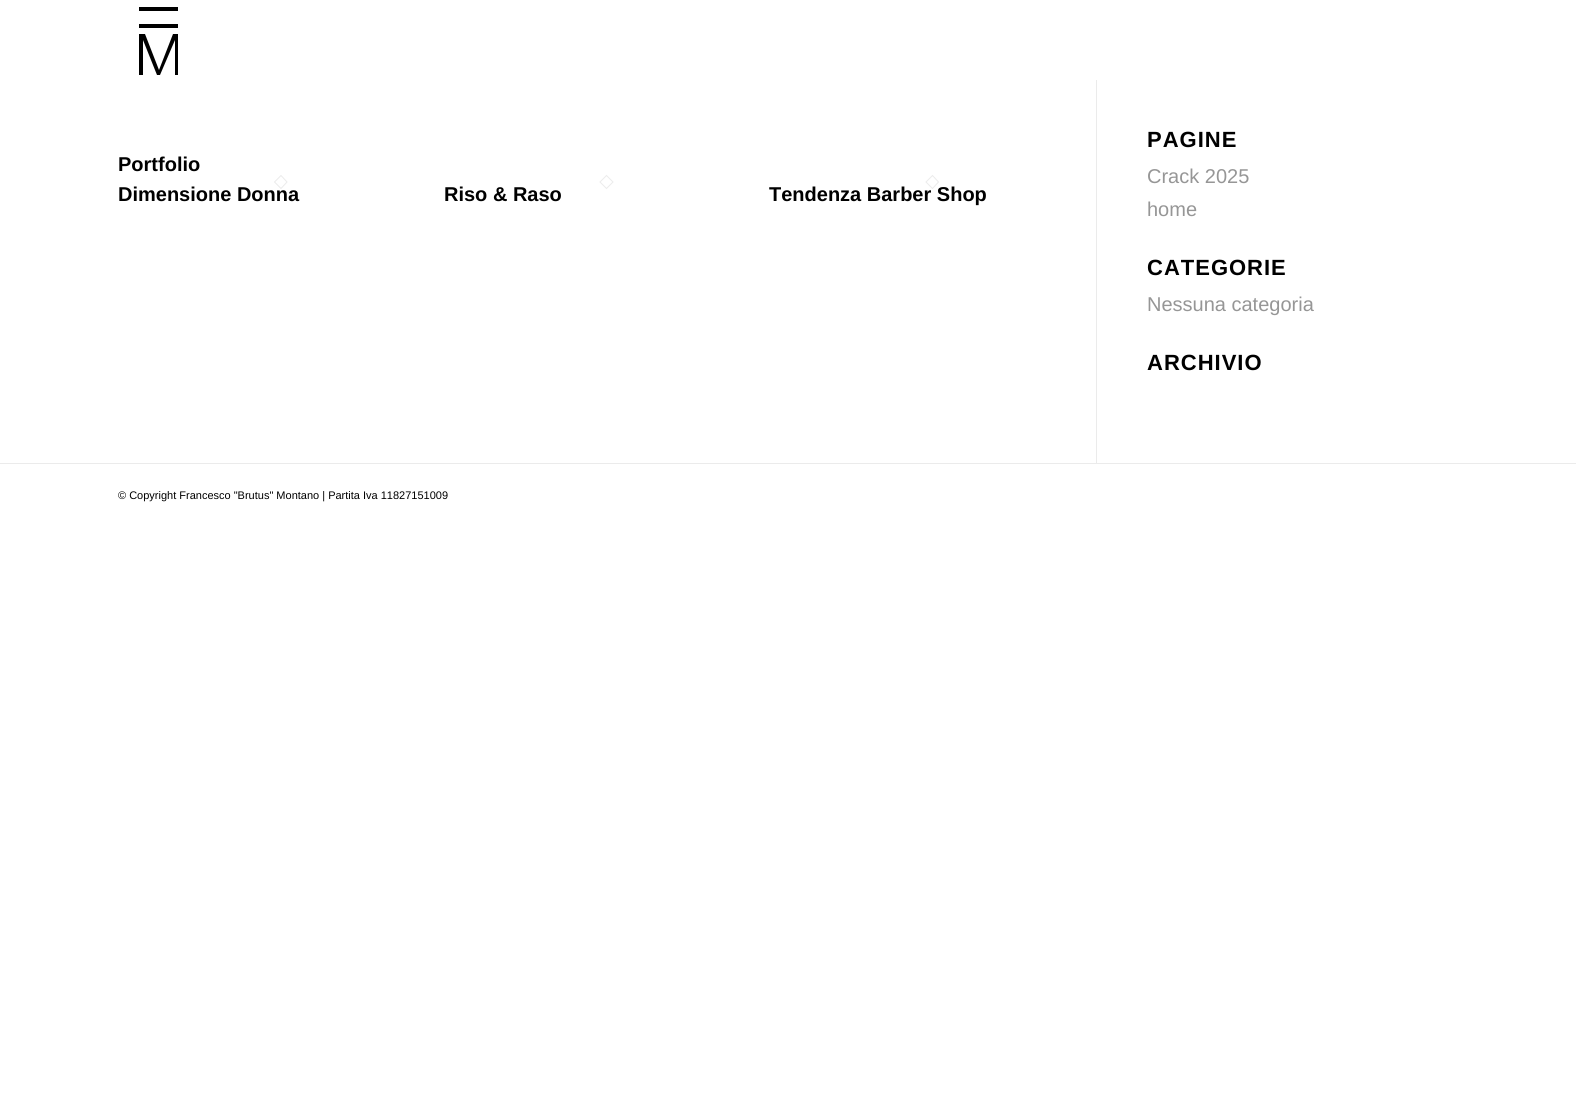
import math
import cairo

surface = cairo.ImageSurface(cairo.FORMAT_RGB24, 1576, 1118)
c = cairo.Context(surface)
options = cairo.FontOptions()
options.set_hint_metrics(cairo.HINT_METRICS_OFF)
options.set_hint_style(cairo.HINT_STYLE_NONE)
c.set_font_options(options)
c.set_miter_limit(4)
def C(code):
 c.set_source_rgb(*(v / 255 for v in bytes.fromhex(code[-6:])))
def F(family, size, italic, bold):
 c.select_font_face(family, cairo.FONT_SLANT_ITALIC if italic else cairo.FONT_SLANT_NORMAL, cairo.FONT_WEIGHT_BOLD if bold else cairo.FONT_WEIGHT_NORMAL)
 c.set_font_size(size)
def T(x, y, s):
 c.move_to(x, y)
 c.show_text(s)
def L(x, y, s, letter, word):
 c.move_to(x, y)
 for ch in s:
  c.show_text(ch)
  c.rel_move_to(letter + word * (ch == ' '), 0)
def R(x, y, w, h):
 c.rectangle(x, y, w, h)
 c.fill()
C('ffffff')
c.paint()
C('000000')
c.new_path()
c.move_to(145,34)
c.line_to(159,70)
c.line_to(173,34)
c.line_to(178,34)
c.line_to(178,75)
c.line_to(175,75)
c.line_to(175,40)
c.line_to(160,75)
c.line_to(157,75)
c.line_to(143,40)
c.line_to(143,75)
c.line_to(139,75)
c.line_to(139,34)
c.close_path()
c.fill()
R(139,7,39,4)
R(139,24,39,4)
C('ebebeb')
R(1096,78,1,386)
C('ffffff')
R(1096,78,1,2)
F('Liberation Sans',20,0,1)
C('000000')
T(118,171,'Portfolio')
T(118,201,'Dimensione Donna')
c.new_path()
c.move_to(281,175.5)
c.line_to(287,182)
c.line_to(281,188.5)
c.line_to(274.5,182)
c.close_path()
C('ebebeb')
c.set_line_width(1)
c.stroke()
c.new_path()
c.move_to(606.5,175.5)
c.line_to(613,182)
c.line_to(606.5,188.5)
c.line_to(600,182)
c.close_path()
c.stroke()
C('000000')
T(444,201,'Riso & Raso')
T(769,201,'Tendenza Barber Shop')
c.new_path()
c.move_to(932.5,175.5)
c.line_to(938.5,182)
c.line_to(932.5,188.5)
c.line_to(926,182)
c.close_path()
C('ebebeb')
c.stroke()
F('Liberation Sans',22,0,1)
C('000000')
L(1147,147,'PAGINE',1,0)
F('Liberation Sans',20,0,0)
C('969696')
T(1147,183,'Crack 2025')
T(1147,216,'home')
F('Liberation Sans',22,0,1)
C('000000')
L(1147,275,'CATEGORIE',1,0)
F('Liberation Sans',20,0,0)
C('969696')
T(1147,311,'Nessuna categoria')
F('Liberation Sans',22,0,1)
C('000000')
L(1147,370,'ARCHIVIO',1,0)
C('ebebeb')
R(0,463,1576,1)
F('Liberation Sans',11,0,0)
C('000000')
T(118,499,'© Copyright Francesco "Brutus" Montano | Partita Iva 11827151009')
surface.write_to_png('o.png')
